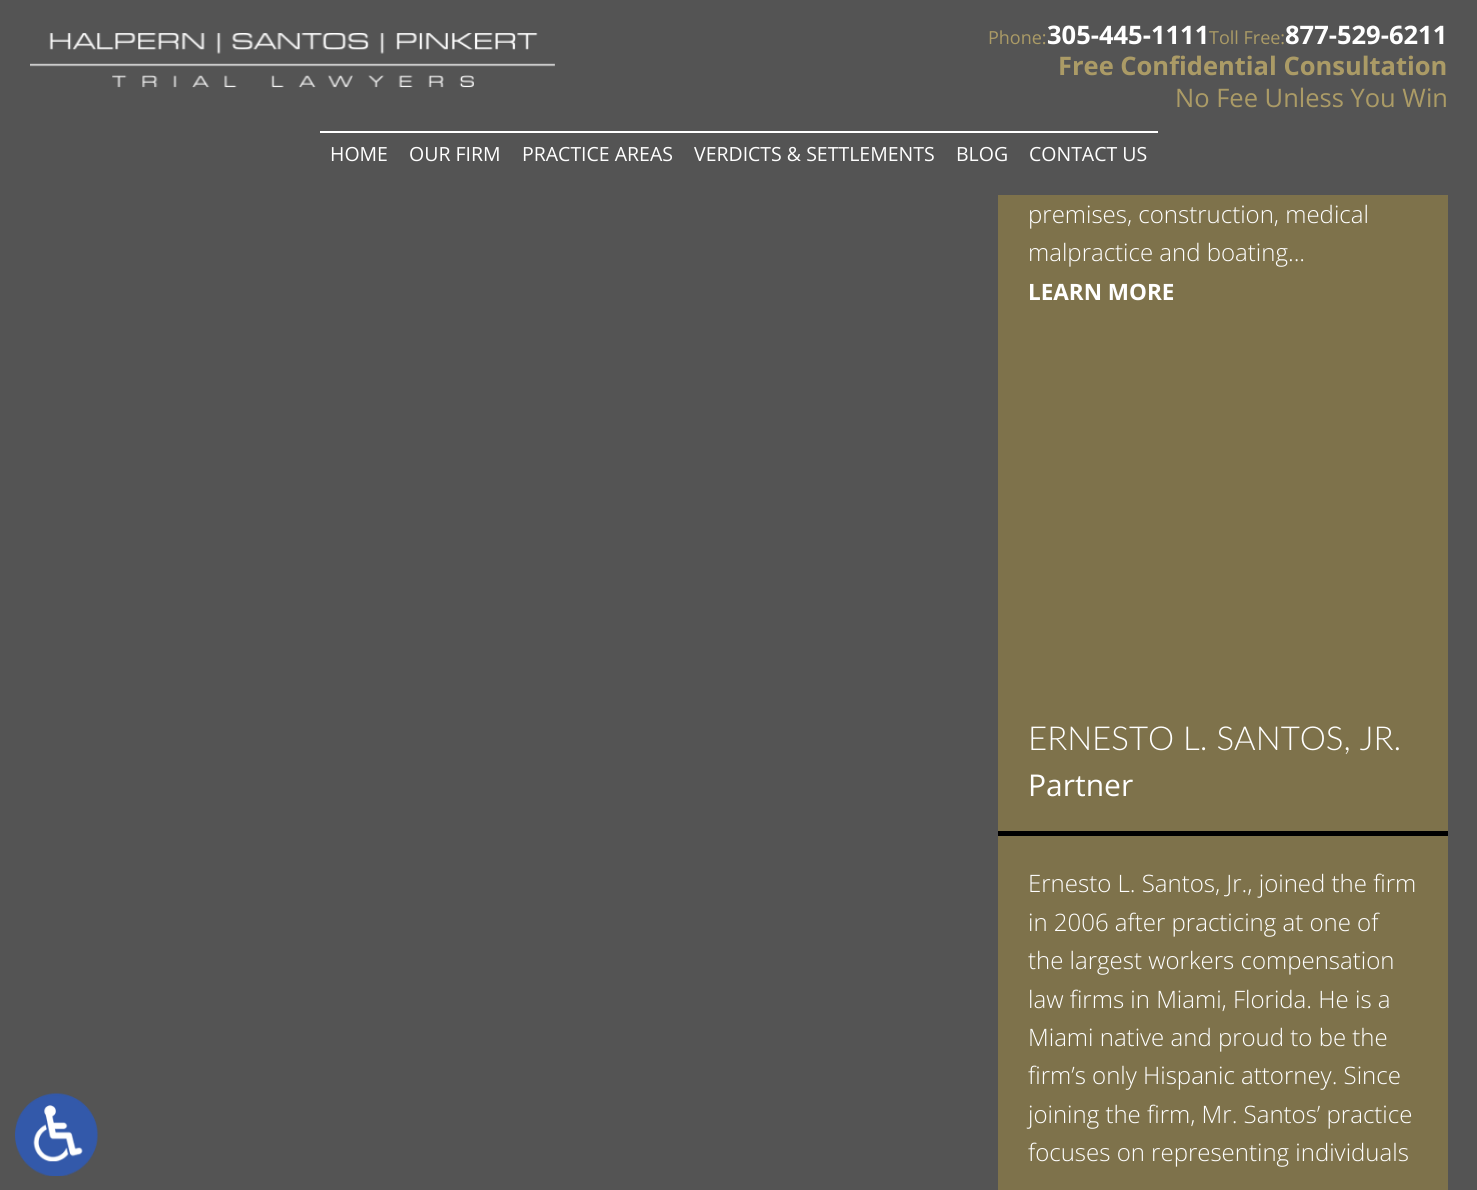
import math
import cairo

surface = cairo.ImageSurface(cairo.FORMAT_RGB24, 1477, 1190)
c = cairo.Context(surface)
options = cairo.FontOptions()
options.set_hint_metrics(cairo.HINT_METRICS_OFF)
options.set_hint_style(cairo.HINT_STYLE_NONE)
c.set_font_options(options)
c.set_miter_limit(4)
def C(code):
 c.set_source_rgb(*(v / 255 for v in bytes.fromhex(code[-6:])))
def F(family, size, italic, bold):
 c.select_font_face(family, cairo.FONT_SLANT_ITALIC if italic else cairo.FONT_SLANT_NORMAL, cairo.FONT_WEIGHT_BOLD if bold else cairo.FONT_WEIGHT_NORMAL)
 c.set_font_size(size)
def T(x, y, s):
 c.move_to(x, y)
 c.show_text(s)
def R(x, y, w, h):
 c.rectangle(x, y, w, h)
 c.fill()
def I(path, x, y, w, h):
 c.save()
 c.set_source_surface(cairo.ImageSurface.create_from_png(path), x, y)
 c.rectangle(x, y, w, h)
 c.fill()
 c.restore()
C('545454')
c.paint()
I('1.png',30,33,525,55)
F('Open Sans',18,0,0)
C('ab9b66')
T(988,44,'Phone:')
F('Open Sans',25.5,0,1)
C('ffffff')
T(1047,44,'305-445-1111')
F('Open Sans',18,0,0)
C('ab9b66')
T(1209,44,'Toll Free:')
F('Open Sans',25.5,0,1)
C('ffffff')
T(1285,44,'877-529-6211')
C('ab9b66')
T(1058,75,'Free Confidential Consultation')
F('Open Sans',25.5,0,0)
T(1175,107,'No Fee Unless You Win')
C('ffffff')
R(320,131,838,2)
F('Open Sans',19.5,0,0)
T(330,161,'HOME')
T(409,161,'OUR FIRM')
T(522,161,'PRACTICE AREAS')
T(694,161,'VERDICTS & SETTLEMENTS')
T(956,161,'BLOG')
T(1029,161,'CONTACT US')
I('2.png',15,1093,83,83)
C('7e724b')
R(998,195,450,995)
F('Open Sans Light',24,0,0)
C('ffffff')
T(1028,223,'premises, construction, medical')
T(1028,261,'malpractice and boating...')
F('Open Sans',22.5,0,1)
T(1028,300,'LEARN MORE')
C('000000')
R(998,831,450,5)
F('Lato Light',33,0,0)
C('ffffff')
T(1028,750,'ERNESTO L. SANTOS, JR.')
F('Open Sans',30,0,0)
T(1028,796,'Partner')
F('Open Sans Light',24,0,0)
T(1028,892,'Ernesto L. Santos, Jr., joined the firm')
T(1028,931,'in 2006 after practicing at one of')
T(1028,969,'the largest workers compensation')
T(1028,1008,'law firms in Miami, Florida. He is a')
T(1028,1046,'Miami native and proud to be the')
T(1028,1084,'firm’s only Hispanic attorney. Since')
T(1028,1123,'joining the firm, Mr. Santos’ practice')
T(1028,1161,'focuses on representing individuals')
surface.write_to_png('o.png')
